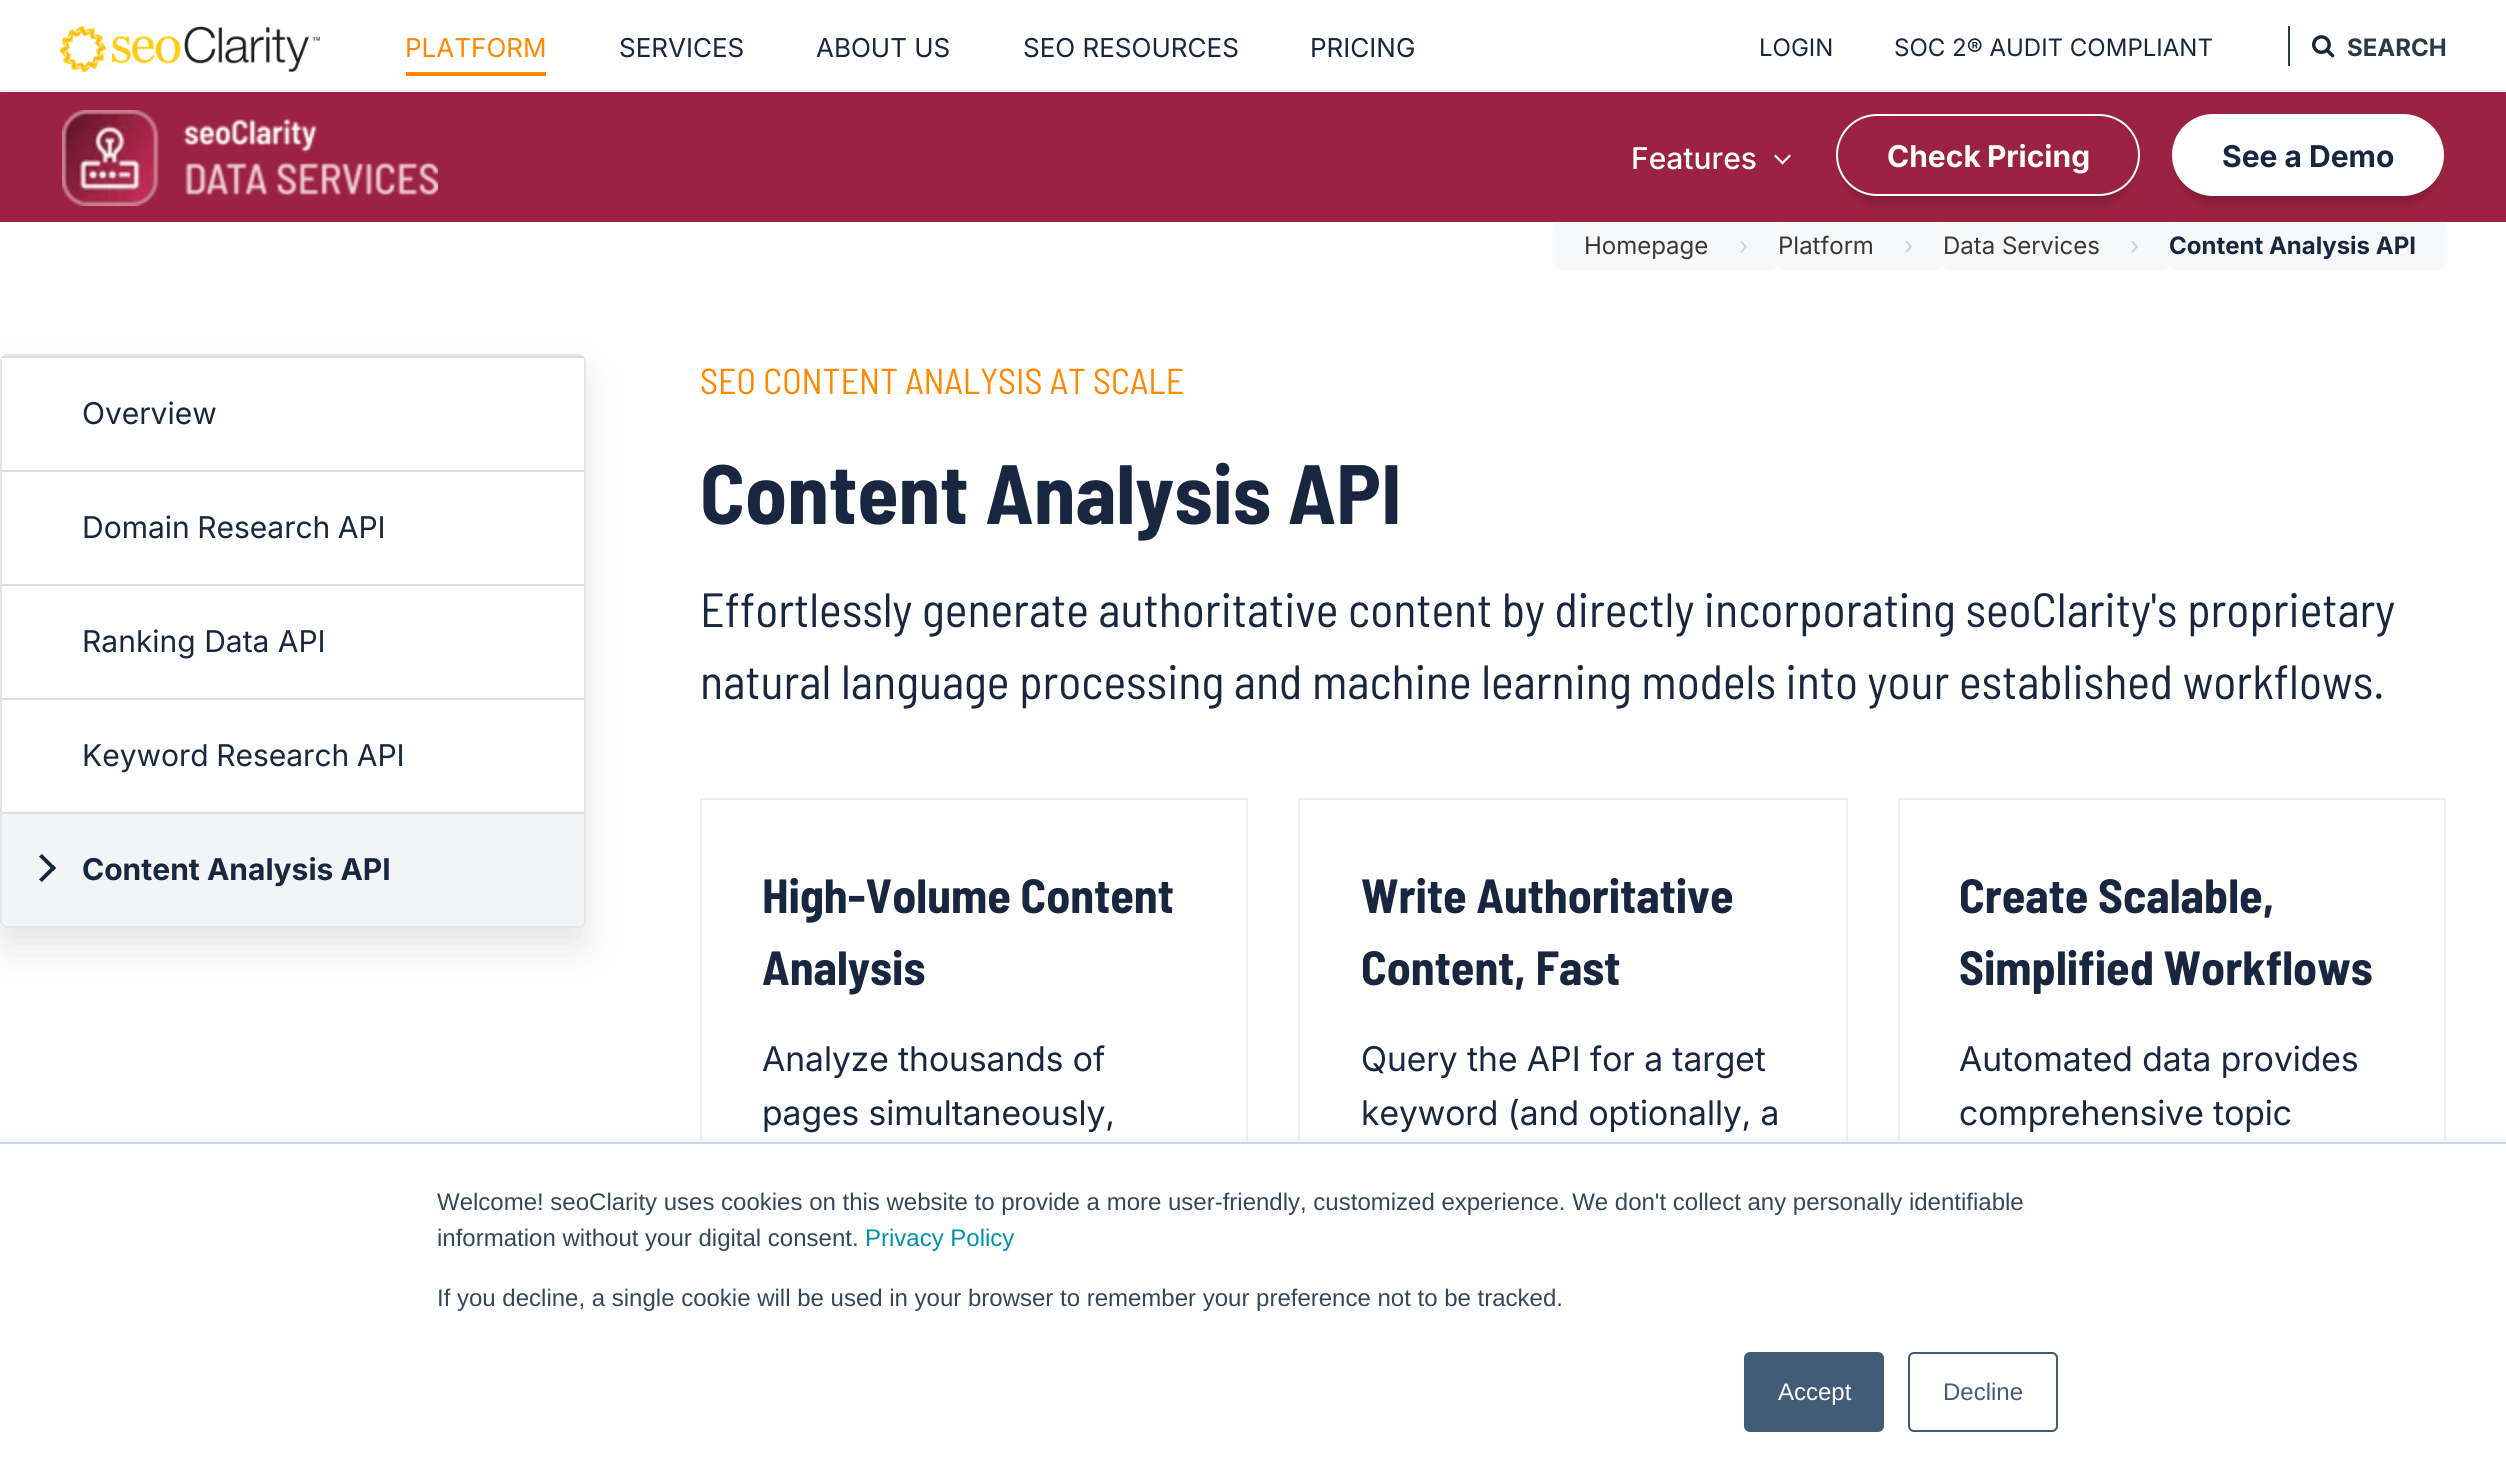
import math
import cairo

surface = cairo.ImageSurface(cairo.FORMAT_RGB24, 2506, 1483)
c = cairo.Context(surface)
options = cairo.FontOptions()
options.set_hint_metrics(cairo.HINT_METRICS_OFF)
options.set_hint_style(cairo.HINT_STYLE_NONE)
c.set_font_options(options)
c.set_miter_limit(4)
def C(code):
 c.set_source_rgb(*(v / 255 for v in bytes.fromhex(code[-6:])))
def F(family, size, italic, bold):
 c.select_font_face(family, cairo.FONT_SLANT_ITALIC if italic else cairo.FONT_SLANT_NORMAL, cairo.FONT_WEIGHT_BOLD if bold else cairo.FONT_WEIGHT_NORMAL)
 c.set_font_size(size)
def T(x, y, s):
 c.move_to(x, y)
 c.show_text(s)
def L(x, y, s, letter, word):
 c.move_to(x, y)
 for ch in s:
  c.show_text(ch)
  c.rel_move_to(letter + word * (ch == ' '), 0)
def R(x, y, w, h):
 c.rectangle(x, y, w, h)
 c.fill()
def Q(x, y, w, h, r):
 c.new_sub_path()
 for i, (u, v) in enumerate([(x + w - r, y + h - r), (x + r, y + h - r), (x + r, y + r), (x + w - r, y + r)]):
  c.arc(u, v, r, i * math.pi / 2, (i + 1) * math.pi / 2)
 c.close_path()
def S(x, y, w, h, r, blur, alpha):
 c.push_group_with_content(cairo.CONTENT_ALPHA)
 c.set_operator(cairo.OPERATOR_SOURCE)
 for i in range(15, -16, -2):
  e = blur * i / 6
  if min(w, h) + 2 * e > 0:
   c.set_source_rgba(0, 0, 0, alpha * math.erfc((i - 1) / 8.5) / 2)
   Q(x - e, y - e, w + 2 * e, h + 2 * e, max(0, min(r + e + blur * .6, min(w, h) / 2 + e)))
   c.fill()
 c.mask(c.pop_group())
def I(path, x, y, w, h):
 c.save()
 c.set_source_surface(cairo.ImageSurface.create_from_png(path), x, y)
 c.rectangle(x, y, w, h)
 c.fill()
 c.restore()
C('ffffff')
c.paint()
c.save()
c.rectangle(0,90,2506,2)
c.clip()
C('cccccc')
S(0,0,2506,90,0,1,1)
c.restore()
I('1.png',60,26,260,46)
F('Inter',26,0,0)
C('ff8800')
T(405,57,'PLATFORM')
R(406,72,140,4)
C('18273f')
T(619,57,'SERVICES')
T(816,57,'ABOUT US')
T(1023,57,'SEO RESOURCES')
T(1310,57,'PRICING')
F('Inter',24,0,0)
T(1759,56,'LOGIN')
T(1894,56,'SOC 2® AUDIT COMPLIANT')
C('2b3a42')
R(2288,26,2,40)
I('2.png',2312,35,23,23)
F('Inter',24,0,1)
T(2347,56,'SEARCH')
C('f7f8f9')
Q(1554,220,224,50,8)
c.fill()
Q(1778,220,164,50,8)
c.fill()
Q(1942,220,228,50,8)
c.fill()
Q(2170,220,276,50,8)
c.fill()
C('9b2242')
R(0,92,2506,130)
I('3.png',62,110,376,96)
F('Inter Medium',30,0,0)
C('ffffff')
T(1631,169,'Features')
c.new_path()
c.move_to(1789.5,154.5)
c.line_to(1791,156)
c.line_to(1782.5,164.5)
c.line_to(1781,163)
c.close_path()
c.fill()
c.new_path()
c.move_to(1775.5,154.5)
c.line_to(1784,163)
c.line_to(1782.5,164.5)
c.line_to(1774,156)
c.close_path()
c.fill()
c.save()
c.set_fill_rule(cairo.FILL_RULE_EVEN_ODD)
c.new_path()
c.move_to(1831,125)
c.line_to(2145,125)
c.line_to(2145,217)
c.line_to(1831,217)
c.close_path()
c.move_to(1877,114)
c.line_to(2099,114)
c.curve_to(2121.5,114,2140,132.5,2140,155)
c.curve_to(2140,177.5,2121.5,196,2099,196)
c.line_to(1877,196)
c.curve_to(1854.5,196,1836,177.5,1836,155)
c.curve_to(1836,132.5,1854.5,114,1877,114)
c.close_path()
c.clip()
C('000000')
S(1844,138,288,66,33,4,.16)
c.restore()
Q(1837,115,302,80,40)
c.stroke()
F('Inter',30,0,1)
L(1887,167,'Check Pricing',0,-1)
C('000000')
S(2180,138,256,66,33,4,.16)
C('ffffff')
Q(2173,115,270,80,40)
c.fill_preserve()
c.stroke()
C('18273f')
T(2222,167,'See a Demo')
F('Inter',24,0,0)
C('393836')
T(1584,254,'Homepage')
C('cbd0d5')
T(1739,254,'›')
C('393836')
T(1778,254,'Platform')
C('cbd0d5')
T(1904,254,'›')
C('393836')
T(1943,254,'Data Services')
C('cbd0d5')
T(2130,254,'›')
F('Inter',24,0,1)
C('18273f')
T(2169,254,'Content Analysis API')
c.save()
c.set_fill_rule(cairo.FILL_RULE_EVEN_ODD)
c.new_path()
c.move_to(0,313)
c.line_to(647,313)
c.line_to(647,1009)
c.line_to(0,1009)
c.close_path()
c.move_to(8,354)
c.line_to(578,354)
c.curve_to(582.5,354,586,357.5,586,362)
c.line_to(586,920)
c.curve_to(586,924.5,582.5,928,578,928)
c.line_to(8,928)
c.curve_to(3.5,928,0,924.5,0,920)
c.line_to(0,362)
c.curve_to(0,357.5,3.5,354,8,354)
c.close_path()
c.clip()
C('000000')
S(0,374,586,574,8,20,.1)
c.restore()
Q(1,355,584,572,7)
c.set_source_rgba(0.267,0.357,0.42,0.15)
c.stroke()
C('ffffff')
c.new_path()
c.move_to(2,356)
c.line_to(584,356)
c.line_to(584,918)
c.curve_to(584,922.5,580.5,926,576,926)
c.line_to(10,926)
c.curve_to(5.5,926,2,922.5,2,918)
c.close_path()
c.fill()
C('dadee1')
R(2,356,582,2)
F('Inter',30,0,0)
C('18273f')
T(82,424,'Overview')
C('dadee1')
R(2,470,582,2)
C('18273f')
L(82,538,'Domain Research API',0,-1)
C('dadee1')
R(2,584,582,2)
C('18273f')
T(82,652,'Ranking Data API')
C('dadee1')
R(2,698,582,2)
C('18273f')
L(82,766,'Keyword Research API',0,-1)
C('dadee1')
R(2,812,582,2)
C('f3f4f5')
c.new_path()
c.move_to(2,814)
c.line_to(584,814)
c.line_to(584,918)
c.curve_to(584,922.5,580.5,926,576,926)
c.line_to(10,926)
c.curve_to(5.5,926,2,922.5,2,918)
c.close_path()
c.fill()
C('18273f')
c.new_path()
c.move_to(39,856.5)
c.line_to(42,854)
c.line_to(56,868)
c.line_to(53.5,871)
c.close_path()
c.fill()
c.new_path()
c.move_to(39,879.5)
c.line_to(53.5,865)
c.line_to(56,868)
c.line_to(42,882)
c.close_path()
c.fill()
F('Inter',30,0,1)
T(82,880,'Content Analysis API')
F('Barlow Semi Condensed',36,0,0)
C('ff8800')
T(700,394,'SEO CONTENT ANALYSIS AT SCALE')
F('Barlow Semi Condensed',84,0,1)
C('18273f')
T(700,524,'Content Analysis API')
F('Barlow Semi Condensed',48,0,0)
T(700,627,'Effortlessly generate authoritative content by directly incorporating seoClarity\'s proprietary')
T(700,699,'natural language processing and machine learning models into your established workflows.')
c.rectangle(701,799,546,676)
C('eeeeee')
c.stroke()
F('Barlow Semi Condensed',48,0,1)
C('18273f')
T(762,913,'High-Volume Content')
T(762,985,'Analysis')
F('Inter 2',34,0,0)
T(762,1071,'Analyze thousands of')
T(762,1125,'pages simultaneously,')
c.rectangle(1299,799,548,676)
C('eeeeee')
c.stroke()
F('Barlow Semi Condensed',48,0,1)
C('18273f')
T(1361,913,'Write Authoritative')
T(1361,985,'Content, Fast')
F('Inter 2',34,0,0)
T(1361,1071,'Query the API for a target')
T(1361,1125,'keyword (and optionally, a')
c.rectangle(1899,799,546,676)
C('eeeeee')
c.stroke()
F('Barlow Semi Condensed',48,0,1)
C('18273f')
T(1959,913,'Create Scalable,')
T(1959,985,'Simplified Workflows')
F('Inter 2',34,0,0)
T(1959,1071,'Automated data provides')
T(1959,1125,'comprehensive topic')
C('eaf0f6')
S(0,1140,2506,342,0,3,1)
C('ffffff')
R(0,1144,2506,339)
C('cbd6e2')
R(0,1142,2506,2)
F('Liberation Sans',24,0,0)
C('33475b')
T(437,1210,'Welcome! seoClarity uses cookies on this website to provide a more user-friendly, customized experience. We don\'t collect any personally identifiable')
T(437,1246,'information without your digital consent.')
C('0091ae')
T(865,1246,'Privacy Policy')
C('33475b')
T(437,1306,'If you decline, a single cookie will be used in your browser to remember your preference not to be tracked.')
C('425b76')
Q(1745,1353,138,78,5)
c.fill_preserve()
c.stroke()
C('ffffff')
T(1778,1400,'Accept')
Q(1909,1353,148,78,5)
C('425b76')
c.stroke()
T(1943,1400,'Decline')
surface.write_to_png('o.png')
